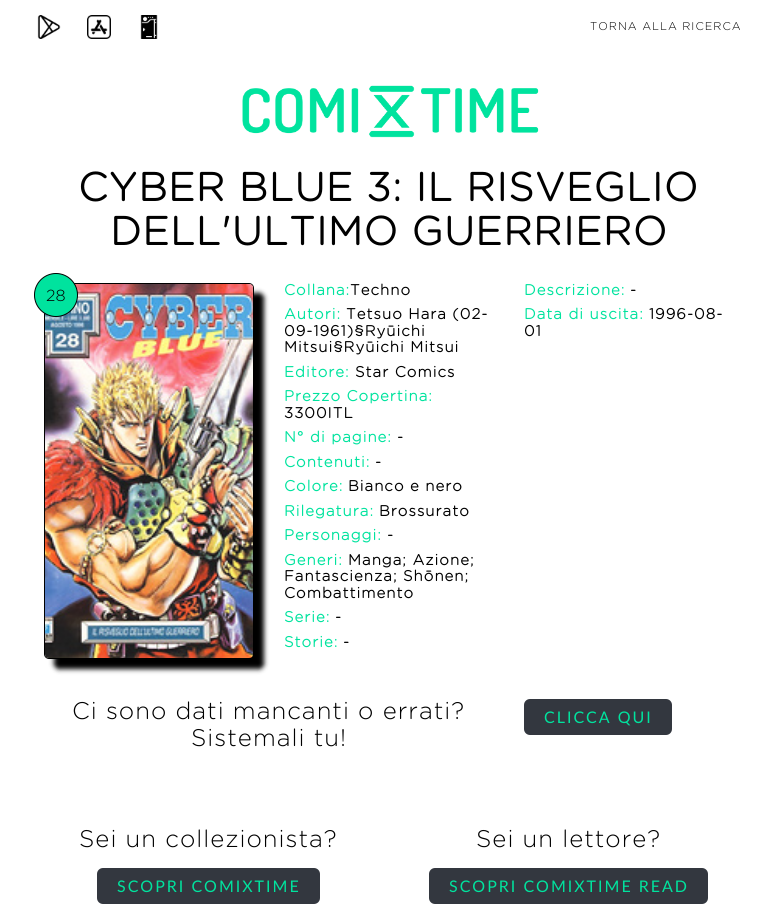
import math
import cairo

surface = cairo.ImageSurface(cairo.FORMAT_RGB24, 777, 905)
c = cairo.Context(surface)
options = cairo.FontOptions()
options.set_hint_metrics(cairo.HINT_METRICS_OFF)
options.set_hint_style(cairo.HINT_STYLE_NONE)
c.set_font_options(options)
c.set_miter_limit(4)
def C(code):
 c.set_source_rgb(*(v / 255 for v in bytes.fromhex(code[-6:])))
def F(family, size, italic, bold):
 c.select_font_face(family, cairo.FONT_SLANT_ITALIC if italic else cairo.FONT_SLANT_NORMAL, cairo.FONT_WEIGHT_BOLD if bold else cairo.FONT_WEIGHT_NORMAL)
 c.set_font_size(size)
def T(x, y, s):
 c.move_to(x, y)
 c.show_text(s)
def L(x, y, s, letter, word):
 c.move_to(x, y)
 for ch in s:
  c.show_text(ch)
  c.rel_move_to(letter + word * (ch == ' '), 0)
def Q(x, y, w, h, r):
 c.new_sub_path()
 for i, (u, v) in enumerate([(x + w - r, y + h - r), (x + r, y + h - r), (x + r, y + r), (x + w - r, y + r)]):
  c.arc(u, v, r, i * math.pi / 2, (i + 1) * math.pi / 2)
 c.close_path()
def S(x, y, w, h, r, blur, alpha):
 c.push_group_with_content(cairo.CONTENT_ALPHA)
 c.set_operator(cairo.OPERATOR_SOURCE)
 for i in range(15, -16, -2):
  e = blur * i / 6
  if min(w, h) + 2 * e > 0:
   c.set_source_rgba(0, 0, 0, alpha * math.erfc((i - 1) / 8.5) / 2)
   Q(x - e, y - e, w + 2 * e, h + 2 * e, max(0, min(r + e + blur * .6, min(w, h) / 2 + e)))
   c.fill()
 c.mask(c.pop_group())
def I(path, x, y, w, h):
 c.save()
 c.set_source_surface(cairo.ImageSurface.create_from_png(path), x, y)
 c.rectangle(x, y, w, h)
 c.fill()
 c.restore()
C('ffffff')
c.paint()
I('1.png',37,15,24,24)
I('2.png',87,15,24,24)
I('3.png',140,15,18,24)
F('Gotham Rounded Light',11.25,0,0)
C('000000')
L(590,30,'TORNA ALLA RICERCA',1,0)
I('4.png',242,85,297,53)
F('Gotham Rounded',40,0,1)
L(78,201,'CYBER BLUE 3: IL RISVEGLIO',1,0)
L(110,245,'DELL\'ULTIMO GUERRIERO',1,0)
C('000000')
S(54,293,210,376,5,2.5,1)
Q(44.5,283.5,209,375,4.5)
C('000000')
c.set_line_width(1)
c.stroke()
I('5.png',45,284,208,374)
C('00e39e')
c.arc(56,295,21.5,0,2 * math.pi)
c.fill_preserve()
C('000000')
c.stroke()
F('Gotham Rounded Light',16,0,0)
T(46,301,'28')
F('Gotham Rounded',15,0,1)
C('00e39e')
L(284,295,'Collana:',1,0)
C('000000')
L(350,295,'Techno',1,0)
C('00e39e')
L(284,319,'Autori:',1,0)
C('000000')
L(346,319,'Tetsuo Hara (02-',1,0)
L(284,336,'09-1961)§Ryūichi',1,0)
L(284,352,'Mitsui§Ryūichi Mitsui',1,0)
C('00e39e')
L(284,377,'Editore:',1,0)
C('000000')
L(355,377,'Star Comics',1,0)
C('00e39e')
L(284,401,'Prezzo Copertina:',1,0)
C('000000')
L(284,418,'3300ITL',1,0)
C('00e39e')
L(284,442,'N° di pagine:',1,0)
C('000000')
L(397,442,'-',1,0)
C('00e39e')
L(284,467,'Contenuti:',1,0)
C('000000')
L(375,467,'-',1,0)
C('00e39e')
L(284,491,'Colore:',1,0)
C('000000')
L(348,491,'Bianco e nero',1,0)
C('00e39e')
L(284,516,'Rilegatura:',1,0)
C('000000')
L(379,516,'Brossurato',1,0)
C('00e39e')
L(284,540,'Personaggi:',1,0)
C('000000')
L(387,540,'-',1,0)
C('00e39e')
L(284,565,'Generi:',1,0)
C('000000')
L(348,565,'Manga; Azione;',1,0)
L(284,581,'Fantascienza; Shōnen;',1,0)
L(284,598,'Combattimento',1,0)
C('00e39e')
L(284,622,'Serie:',1,0)
C('000000')
L(335,622,'-',1,0)
C('00e39e')
L(284,647,'Storie:',1,0)
C('000000')
L(343,647,'-',1,0)
C('00e39e')
L(524,295,'Descrizione:',1,0)
C('000000')
L(630,295,'-',1,0)
C('00e39e')
L(524,319,'Data di uscita:',1,0)
C('000000')
L(649,319,'1996-08-',1,0)
L(524,336,'01',1,0)
F('Gotham Rounded Light',24,0,0)
L(72,719,'Ci sono dati mancanti o errati?',1,0)
L(191,746,'Sistemali tu!',1,0)
C('33373f')
Q(524,699,148,36,6)
c.fill()
F('Lato',16,0,0)
C('00e39e')
L(544,723,'CLICCA QUI',2,0)
F('Gotham Rounded Light',24,0,0)
C('000000')
L(79,847,'Sei un collezionista?',1,0)
C('33373f')
Q(97,868,223,36,6)
c.fill()
F('Lato',16,0,0)
C('00e39e')
L(117,892,'SCOPRI COMIXTIME',2,0)
F('Gotham Rounded Light',24,0,0)
C('000000')
L(476,847,'Sei un lettore?',1,0)
C('33373f')
Q(429,868,279,36,6)
c.fill()
F('Lato',16,0,0)
C('00e39e')
L(449,892,'SCOPRI COMIXTIME READ',2,0)
surface.write_to_png('o.png')
